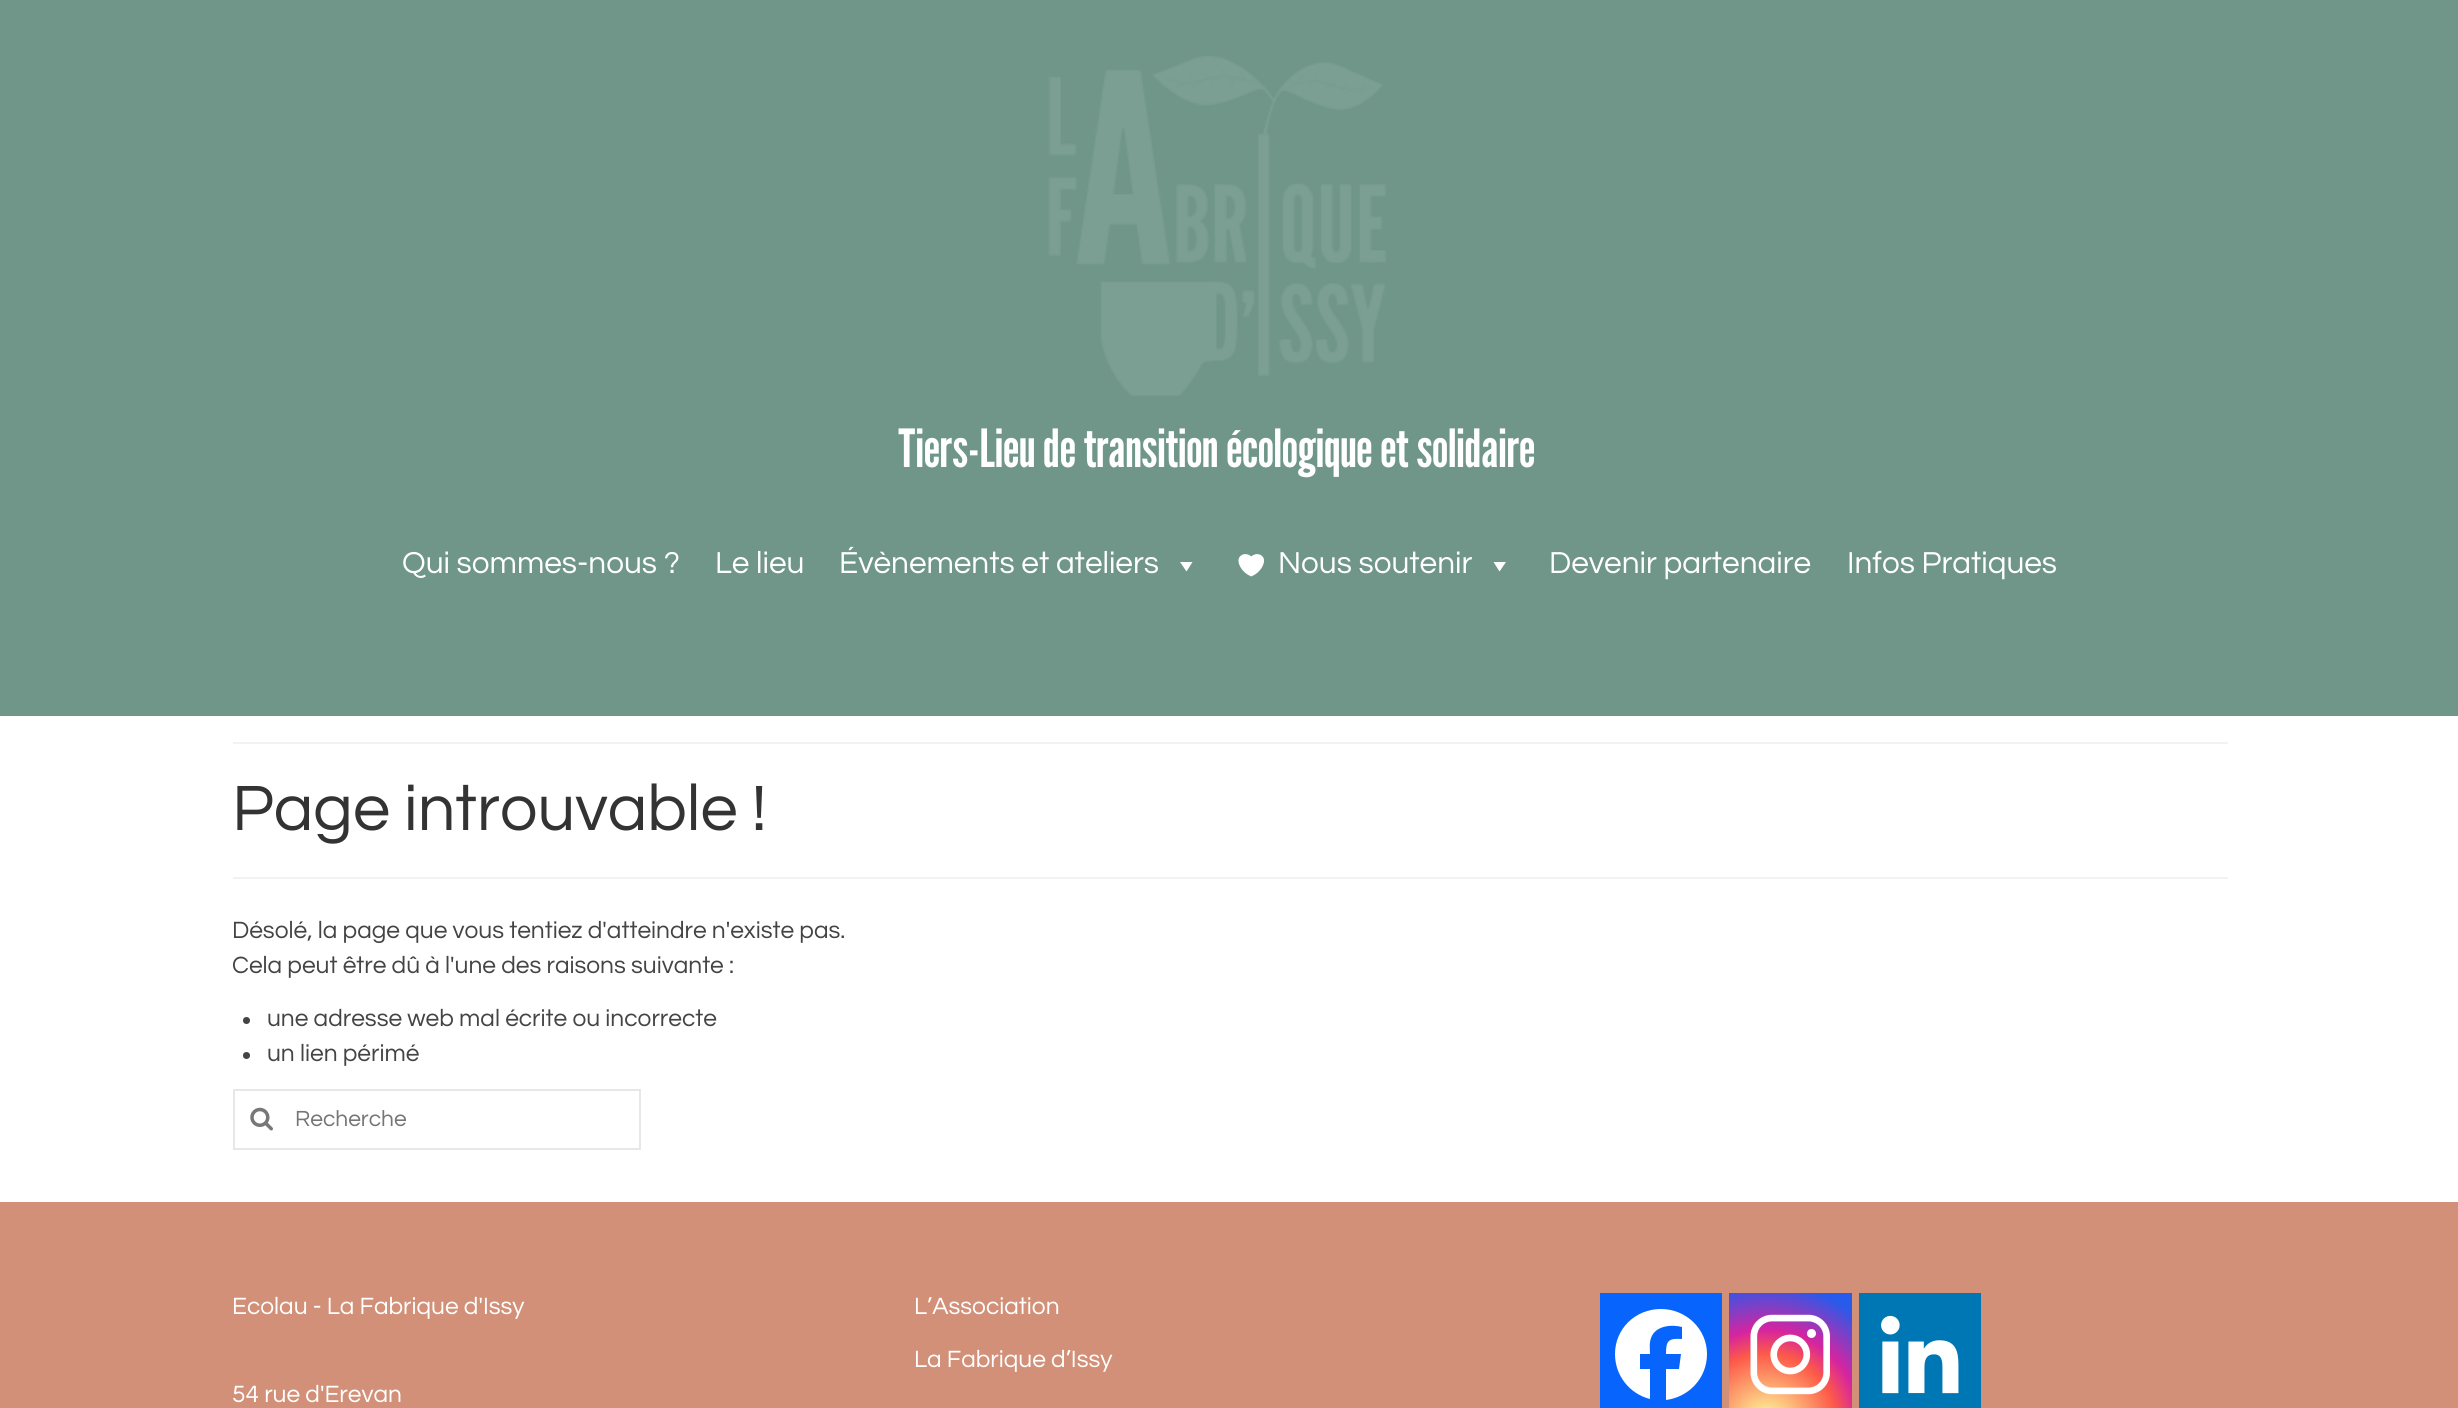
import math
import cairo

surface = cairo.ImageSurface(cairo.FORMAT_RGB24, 2458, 1408)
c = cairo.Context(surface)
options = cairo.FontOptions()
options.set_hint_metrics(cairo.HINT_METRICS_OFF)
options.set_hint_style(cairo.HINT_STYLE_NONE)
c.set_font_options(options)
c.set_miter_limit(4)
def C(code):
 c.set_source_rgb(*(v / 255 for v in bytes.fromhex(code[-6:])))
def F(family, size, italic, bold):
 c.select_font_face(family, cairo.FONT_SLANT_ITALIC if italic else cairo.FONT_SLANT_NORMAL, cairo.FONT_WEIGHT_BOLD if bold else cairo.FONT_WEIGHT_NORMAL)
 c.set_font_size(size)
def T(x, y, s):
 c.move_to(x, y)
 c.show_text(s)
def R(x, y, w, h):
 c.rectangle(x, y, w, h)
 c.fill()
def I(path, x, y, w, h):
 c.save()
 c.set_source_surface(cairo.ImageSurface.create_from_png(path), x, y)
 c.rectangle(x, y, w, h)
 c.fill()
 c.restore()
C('ffffff')
c.paint()
C('6f9689')
R(0,0,2458,716)
I('1.png',1048,56,338,340)
F('League Gothic',52.5,0,0)
C('ffffff')
T(898,467,'Tiers-Lieu de transition écologique et solidaire')
F('Questrial',31.5,0,0)
T(402,573,'Qui sommes-nous ?')
T(715,573,'Le lieu')
T(839,573,'Évènements et ateliers')
c.new_path()
c.move_to(1192.5,562)
c.line_to(1186.5,571.5)
c.line_to(1180,562)
c.close_path()
c.fill()
I('2.png',1238,554,26,23)
T(1278,573,'Nous soutenir')
c.new_path()
c.move_to(1506,562)
c.line_to(1499.5,571.5)
c.line_to(1493.5,562)
c.close_path()
c.fill()
T(1549,573,'Devenir partenaire')
T(1847,573,'Infos Pratiques')
C('f2f2f2')
R(233,742,1995,2)
R(233,877,1995,2)
F('Questrial',66.5,0,0)
C('333333')
T(232,830,'Page introuvable !')
F('Questrial',24.5,0,0)
C('444444')
T(232,938,'Désolé, la page que vous tentiez d\'atteindre n\'existe pas.')
T(232,973,'Cela peut être dû à l\'une des raisons suivante :')
c.new_path()
c.arc(246.5,1020.5,3.5,0,2 * math.pi)
c.fill()
T(267,1026,'une adresse web mal écrite ou incorrecte')
c.new_path()
c.arc(246.5,1055.5,3.5,0,2 * math.pi)
c.fill()
T(267,1061,'un lien périmé')
c.rectangle(234,1090,406,59)
C('e7e7e7')
c.stroke()
I('3.png',250,1107,23,24)
F('Questrial',22.75,0,0)
C('757575')
T(295,1126,'Recherche')
C('d29078')
R(0,1202,2458,206)
F('Questrial',24.5,0,0)
C('ffffff')
T(232,1314,'Ecolau - La Fabrique d\'Issy')
T(232,1402,'54 rue d\'Erevan')
T(914,1314,'L’Association')
T(914,1367,'La Fabrique d’Issy')
C('0765fe')
R(1600,1293,122,115)
C('ffffff')
c.new_path()
c.move_to(1707,1354)
c.curve_to(1707,1329,1686,1309,1661,1309)
c.curve_to(1635,1309,1615,1329,1615,1354)
c.curve_to(1615,1376,1630,1394,1650,1399)
c.line_to(1650,1369)
c.line_to(1640,1369)
c.line_to(1640,1354)
c.line_to(1650,1354)
c.curve_to(1650,1349,1649,1344,1651,1338)
c.curve_to(1655,1326,1671,1324,1682,1327)
c.line_to(1682,1339)
c.curve_to(1668,1338,1666,1341,1666,1354)
c.line_to(1681,1354)
c.line_to(1679,1369)
c.line_to(1666,1369)
c.line_to(1666,1400)
c.curve_to(1689,1397,1707,1378,1707,1354)
c.close_path()
c.fill()
gradient = cairo.RadialGradient(1766,1424,0,1766,1424,157)
gradient.add_color_stop_rgba(0,0.992,0.957,0.592,1)
gradient.add_color_stop_rgba(.05,0.992,0.957,0.592,1)
gradient.add_color_stop_rgba(.45,0.992,0.349,0.286,1)
gradient.add_color_stop_rgba(.6,0.839,0.141,0.624,1)
gradient.add_color_stop_rgba(.9,0.157,0.353,0.922,1)
c.set_source(gradient)
R(1729,1293,123,115)
I('4.png',1750,1314,80,81)
C('0077b5')
R(1859,1293,122,115)
I('5.png',1881,1315,78,79)
surface.write_to_png('o.png')
